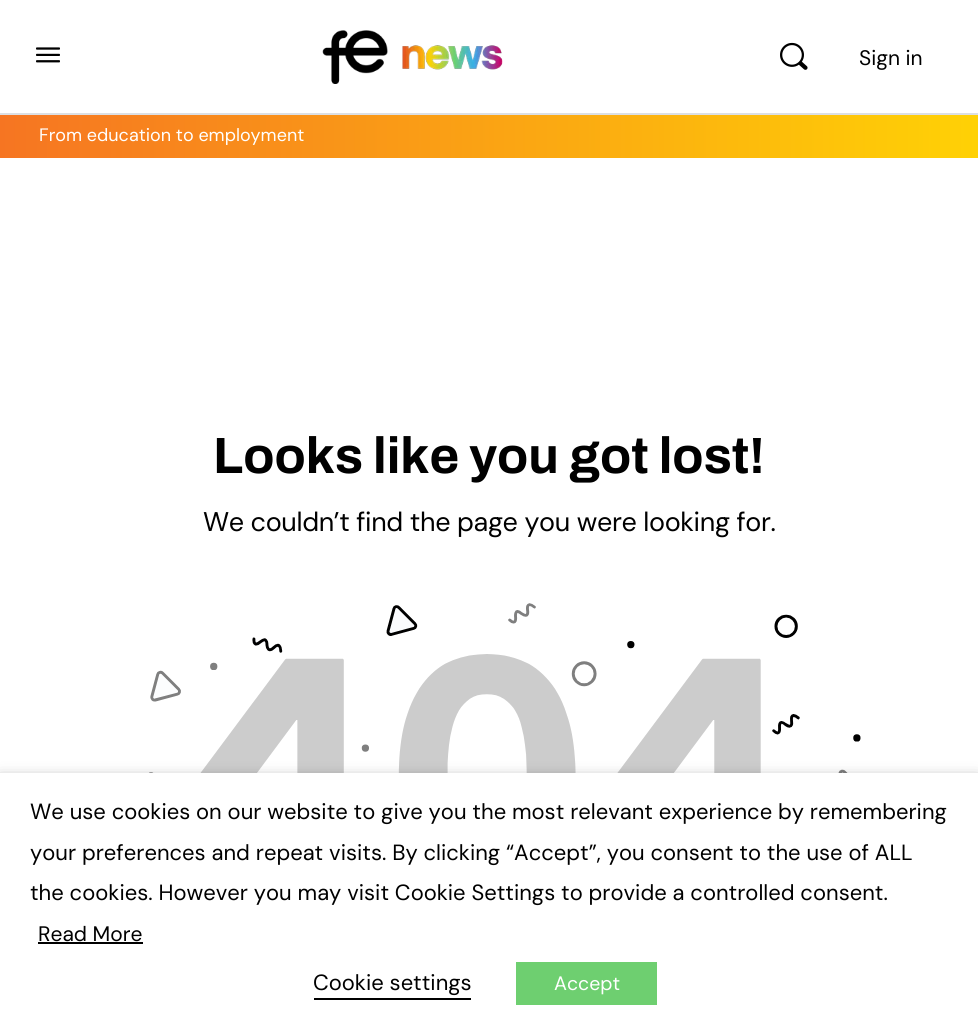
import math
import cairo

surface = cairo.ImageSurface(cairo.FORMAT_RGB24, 978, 1031)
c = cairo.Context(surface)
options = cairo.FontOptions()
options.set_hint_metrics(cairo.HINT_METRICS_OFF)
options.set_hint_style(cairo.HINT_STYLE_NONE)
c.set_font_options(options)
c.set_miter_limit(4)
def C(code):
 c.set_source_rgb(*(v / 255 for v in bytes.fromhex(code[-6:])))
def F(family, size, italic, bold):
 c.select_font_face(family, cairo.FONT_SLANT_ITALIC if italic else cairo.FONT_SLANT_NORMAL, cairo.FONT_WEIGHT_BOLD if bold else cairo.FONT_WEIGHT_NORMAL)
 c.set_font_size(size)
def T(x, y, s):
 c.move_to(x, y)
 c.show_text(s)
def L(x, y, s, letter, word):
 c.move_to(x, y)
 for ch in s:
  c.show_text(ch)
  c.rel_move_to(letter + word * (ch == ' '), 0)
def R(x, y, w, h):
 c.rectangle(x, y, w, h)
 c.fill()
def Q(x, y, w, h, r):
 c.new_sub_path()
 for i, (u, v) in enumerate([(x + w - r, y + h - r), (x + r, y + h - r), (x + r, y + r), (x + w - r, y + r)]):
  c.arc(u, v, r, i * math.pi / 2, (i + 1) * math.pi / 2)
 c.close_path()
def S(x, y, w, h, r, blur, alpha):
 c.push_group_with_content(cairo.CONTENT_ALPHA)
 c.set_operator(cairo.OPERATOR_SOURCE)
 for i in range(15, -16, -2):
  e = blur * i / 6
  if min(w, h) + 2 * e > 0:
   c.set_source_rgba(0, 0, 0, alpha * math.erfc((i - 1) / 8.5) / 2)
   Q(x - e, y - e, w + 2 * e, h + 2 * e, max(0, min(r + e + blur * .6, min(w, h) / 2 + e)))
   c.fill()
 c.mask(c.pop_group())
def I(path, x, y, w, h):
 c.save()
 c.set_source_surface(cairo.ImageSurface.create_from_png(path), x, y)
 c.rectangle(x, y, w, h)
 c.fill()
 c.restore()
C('ffffff')
c.paint()
C('dcdfe3')
R(0,113,978,2)
I('1.png',36,47,24,16)
I('2.png',322,30,181,54)
I('3.png',780,42,28,28)
F('DM Sans',21,0,0)
C('000000')
T(859,65,'Sign in')
gradient = cairo.LinearGradient(0,135,978,135)
gradient.add_color_stop_rgba(0,0.965,0.459,0.133,1)
gradient.add_color_stop_rgba(1,1,0.82,0.02,1)
c.set_source(gradient)
R(0,115,978,43)
F('DM Sans',18,0,0)
C('ffffff')
T(39,141,'From education to employment')
F('Archivo SemiBold',51,0,0)
C('000000')
T(213,473,'Looks like you got lost!')
F('DM Sans',27,0,0)
L(203,531,'We couldn’t find the page you were looking for.',-.35,0)
I('4.png',149,603,712,170)
C('000000')
S(0,780,978,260,0,7.5,.5)
C('ffffff')
R(0,773,978,258)
F('DM Sans',22,0,0)
C('000000')
T(30,819,'We use cookies on our website to give you the most relevant experience by remembering')
T(30,860,'your preferences and repeat visits. By clicking “Accept”, you consent to the use of ALL')
T(30,900,'the cookies. However you may visit Cookie Settings to provide a controlled consent.')
F('DM Sans',21,0,0)
T(38,941,'Read More')
R(38,942,105,2)
F('DM Sans',22,0,0)
T(313,990,'Cookie settings')
R(314,998,157,2)
C('6ecf70')
R(516,962,141,43)
F('DM Sans',19.5,0,0)
C('ffffff')
T(554,990,'Accept')
surface.write_to_png('o.png')
